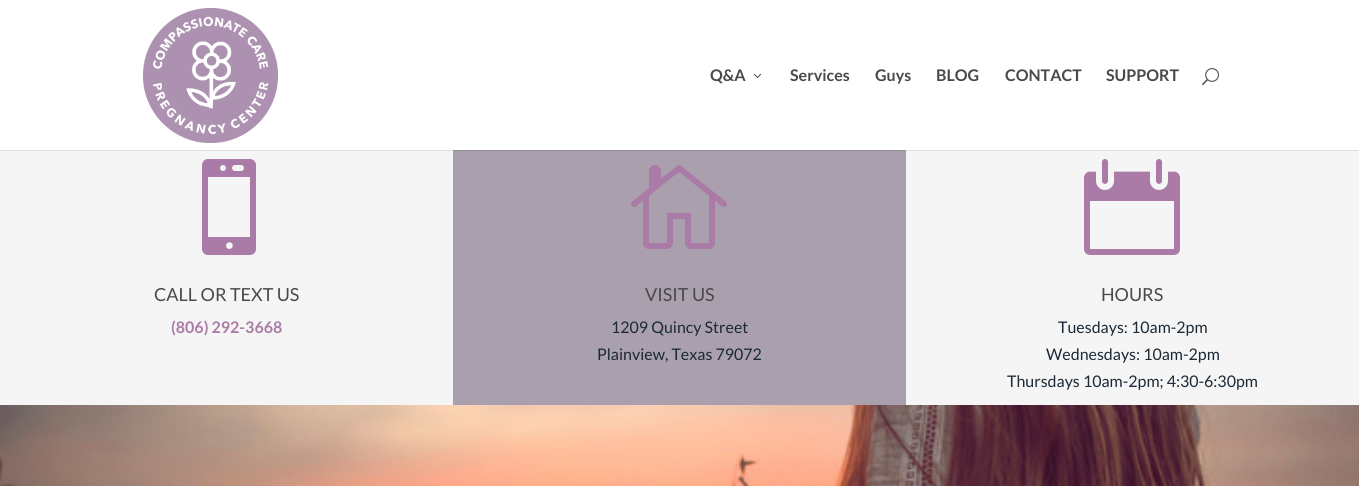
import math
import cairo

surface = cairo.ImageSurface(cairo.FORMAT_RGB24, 1359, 486)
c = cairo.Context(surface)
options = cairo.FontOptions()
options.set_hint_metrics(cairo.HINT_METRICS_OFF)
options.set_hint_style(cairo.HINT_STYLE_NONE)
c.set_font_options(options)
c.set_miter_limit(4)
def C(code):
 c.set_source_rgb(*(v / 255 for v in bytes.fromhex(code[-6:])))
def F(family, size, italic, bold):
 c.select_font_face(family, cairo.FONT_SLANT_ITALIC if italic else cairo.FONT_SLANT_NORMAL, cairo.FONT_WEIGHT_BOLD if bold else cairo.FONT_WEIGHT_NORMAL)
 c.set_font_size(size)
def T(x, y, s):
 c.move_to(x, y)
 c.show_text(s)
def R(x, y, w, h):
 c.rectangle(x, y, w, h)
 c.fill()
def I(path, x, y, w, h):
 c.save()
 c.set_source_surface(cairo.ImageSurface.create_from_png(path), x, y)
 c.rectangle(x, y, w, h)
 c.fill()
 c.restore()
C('ffffff')
c.paint()
I('1.png',0,405,1359,81)
C('f5f5f5')
R(0,150,453,255)
C('a99fad')
R(453,150,453,255)
C('f5f5f5')
R(906,150,453,255)
c.set_source_rgba(0,0,0,0.1)
R(0,150,1359,1)
I('2.png',143,8,135,135)
F('Lato',16,0,1)
C('494949')
T(710,81,'Q&A')
I('3.png',753,73,9,5)
T(790,81,'Services')
T(875,81,'Guys')
T(936,81,'BLOG')
T(1005,81,'CONTACT')
T(1106,81,'SUPPORT')
I('4.png',1202,68,17,18)
I('5.png',202,159,54,96)
F('Lato',18,0,0)
T(154,301,'CALL OR TEXT US')
F('Lato',16,0,1)
C('aa7ba7')
T(171,333,'(806) 292-3668')
I('6.png',631,165,96,84)
F('Lato',18,0,0)
C('494949')
T(645,301,'VISIT US')
F('Lato',16,0,0)
C('1b2936')
T(611,333,'1209 Quincy Street')
T(597,360,'Plainview, Texas 79072')
I('7.png',1084,159,96,96)
F('Lato',18,0,0)
C('494949')
T(1101,301,'HOURS')
F('Lato',16,0,0)
C('1b2936')
T(1058,333,'Tuesdays: 10am-2pm')
T(1046,360,'Wednesdays: 10am-2pm')
T(1007,387,'Thursdays 10am-2pm; 4:30-6:30pm')
surface.write_to_png('o.png')
